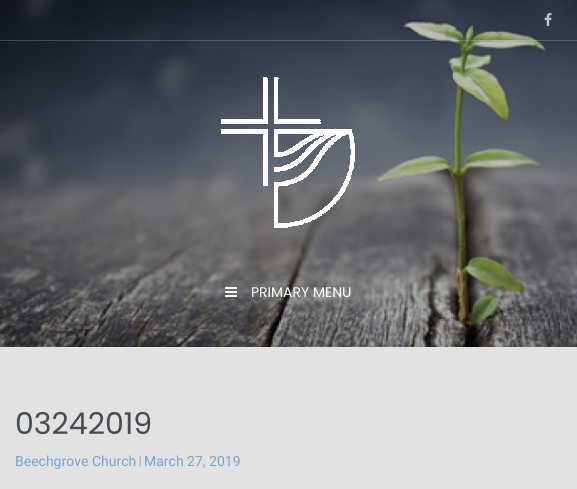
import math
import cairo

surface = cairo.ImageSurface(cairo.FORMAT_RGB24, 577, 489)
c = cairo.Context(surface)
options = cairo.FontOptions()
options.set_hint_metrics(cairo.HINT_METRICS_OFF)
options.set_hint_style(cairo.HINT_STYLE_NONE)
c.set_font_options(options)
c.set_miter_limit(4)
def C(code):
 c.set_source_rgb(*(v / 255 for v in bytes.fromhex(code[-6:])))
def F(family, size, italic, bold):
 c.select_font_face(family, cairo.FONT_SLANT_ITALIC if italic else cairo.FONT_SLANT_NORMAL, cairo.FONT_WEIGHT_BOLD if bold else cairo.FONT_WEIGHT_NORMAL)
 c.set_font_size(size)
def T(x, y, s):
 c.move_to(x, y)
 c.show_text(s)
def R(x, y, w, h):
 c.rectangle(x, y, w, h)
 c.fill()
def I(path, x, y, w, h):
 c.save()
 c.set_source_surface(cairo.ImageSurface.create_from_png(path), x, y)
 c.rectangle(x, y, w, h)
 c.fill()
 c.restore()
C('e2e2e2')
c.paint()
I('1.png',0,0,577,347)
c.set_source_rgba(1,1,1,0.2)
R(0,40,577,1)
I('2.png',544,13,8,13)
I('3.png',221,77,134,151)
I('4.png',225,287,12,10)
F('Poppins',14,0,0)
C('ffffff')
T(251,297,'PRIMARY MENU')
F('Poppins',30,0,0)
C('464c51')
T(15,434,'03242019')
F('Roboto',14,0,0)
C('75a3d1')
T(15,466,'Beechgrove Church')
F('Liberation Serif',11,0,0)
C('707070')
T(139,464,'|')
F('Roboto',14,0,0)
C('75a3d1')
T(144,466,'March 27, 2019')
surface.write_to_png('o.png')
